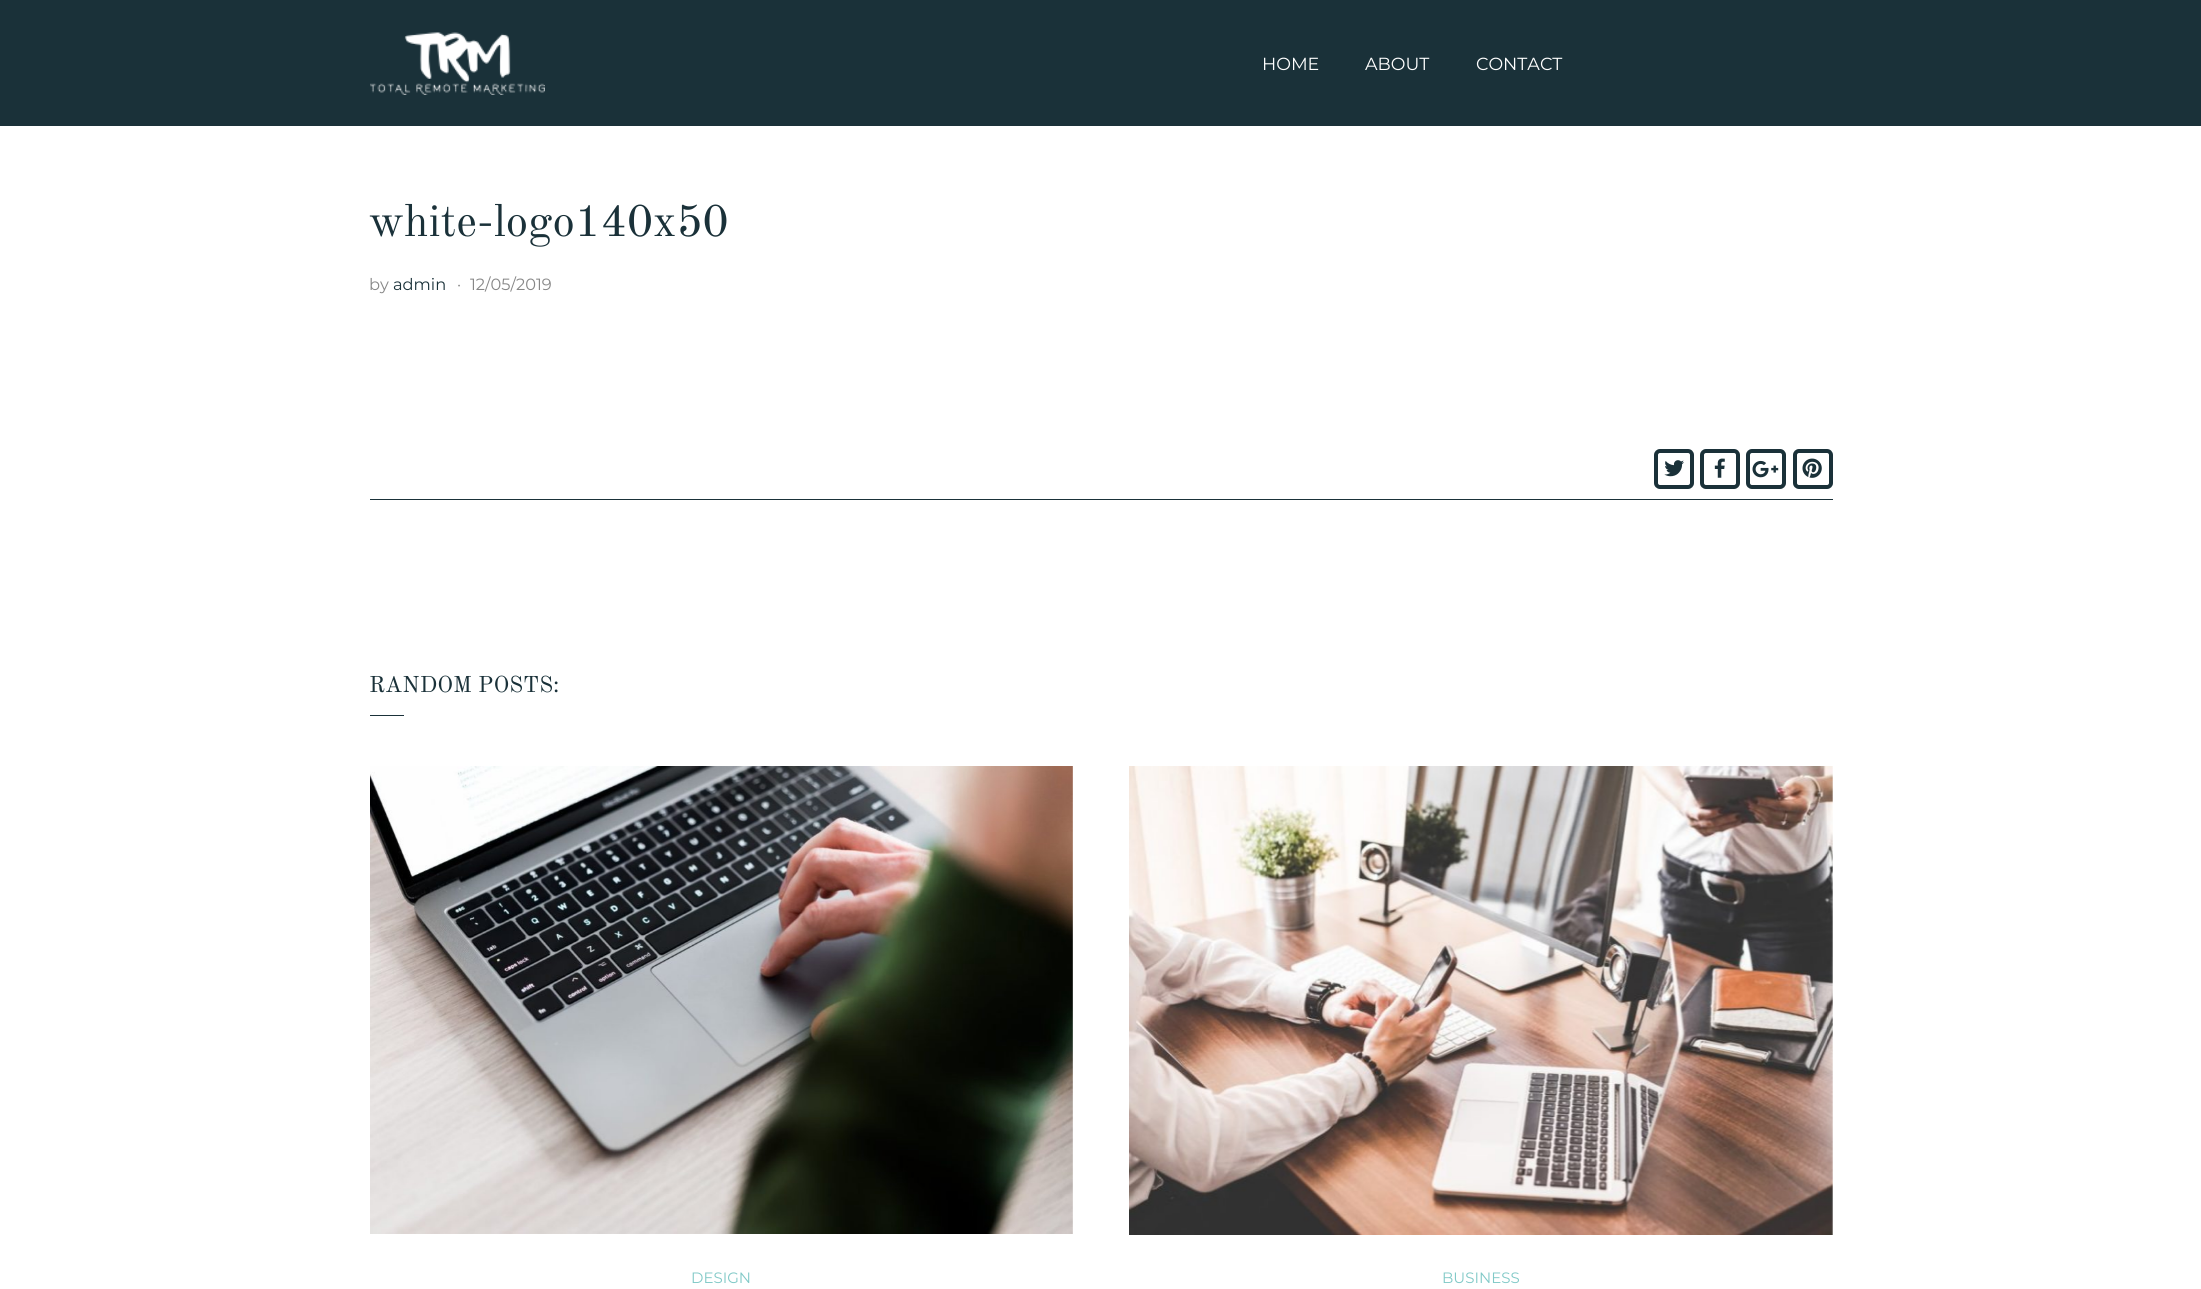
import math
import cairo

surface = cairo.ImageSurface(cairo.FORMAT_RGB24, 2201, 1289)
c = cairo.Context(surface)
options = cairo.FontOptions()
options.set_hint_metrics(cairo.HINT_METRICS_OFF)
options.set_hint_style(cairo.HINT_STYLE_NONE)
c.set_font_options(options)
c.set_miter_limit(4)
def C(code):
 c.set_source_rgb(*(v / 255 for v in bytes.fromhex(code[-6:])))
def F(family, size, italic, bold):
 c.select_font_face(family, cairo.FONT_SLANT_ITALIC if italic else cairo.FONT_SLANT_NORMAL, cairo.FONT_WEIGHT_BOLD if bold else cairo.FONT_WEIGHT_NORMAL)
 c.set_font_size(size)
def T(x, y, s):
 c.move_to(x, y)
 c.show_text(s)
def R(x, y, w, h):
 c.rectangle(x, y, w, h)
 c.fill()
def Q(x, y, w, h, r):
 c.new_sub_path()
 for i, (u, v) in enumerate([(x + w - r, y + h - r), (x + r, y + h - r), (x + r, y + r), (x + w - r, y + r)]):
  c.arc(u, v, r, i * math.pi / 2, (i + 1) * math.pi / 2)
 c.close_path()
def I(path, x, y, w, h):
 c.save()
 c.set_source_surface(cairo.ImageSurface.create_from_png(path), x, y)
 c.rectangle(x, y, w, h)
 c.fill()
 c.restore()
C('ffffff')
c.paint()
C('1a3139')
R(0,0,2201,126)
I('1.png',370,32,175,63)
F('Montserrat',17.5,0,0)
C('ffffff')
T(1262,70,'HOME')
T(1365,70,'ABOUT')
T(1476,70,'CONTACT')
F('Old Standard TT',45,0,0)
C('1a3139')
T(369,236,'white-logo140x50')
F('Montserrat',16.25,0,0)
C('878787')
T(369,290,'by')
C('1a3139')
T(393,290,'admin')
C('878787')
T(457,290,'·')
T(470,290,'12/05/2019')
C('1a3139')
R(370,499,1463,1)
Q(1656,451,36,36,4)
c.set_line_width(4)
c.stroke()
I('2.png',1664,460,20,17)
Q(1702,451,36,36,4)
c.stroke()
I('3.png',1714,458,11,20)
Q(1748,451,36,36,4)
c.stroke()
I('4.png',1752,460,27,18)
Q(1795,451,36,36,4)
c.stroke()
I('5.png',1802,458,20,20)
F('Old Standard TT',22.5,0,0)
T(369,692,'RANDOM POSTS:')
R(370,715,34,1)
I('6.png',370,766,703,468)
F('Montserrat',15,0,0)
C('81c9c7')
T(691,1283,'DESIGN')
I('7.png',1129,766,704,469)
T(1442,1283,'BUSINESS')
surface.write_to_png('o.png')
